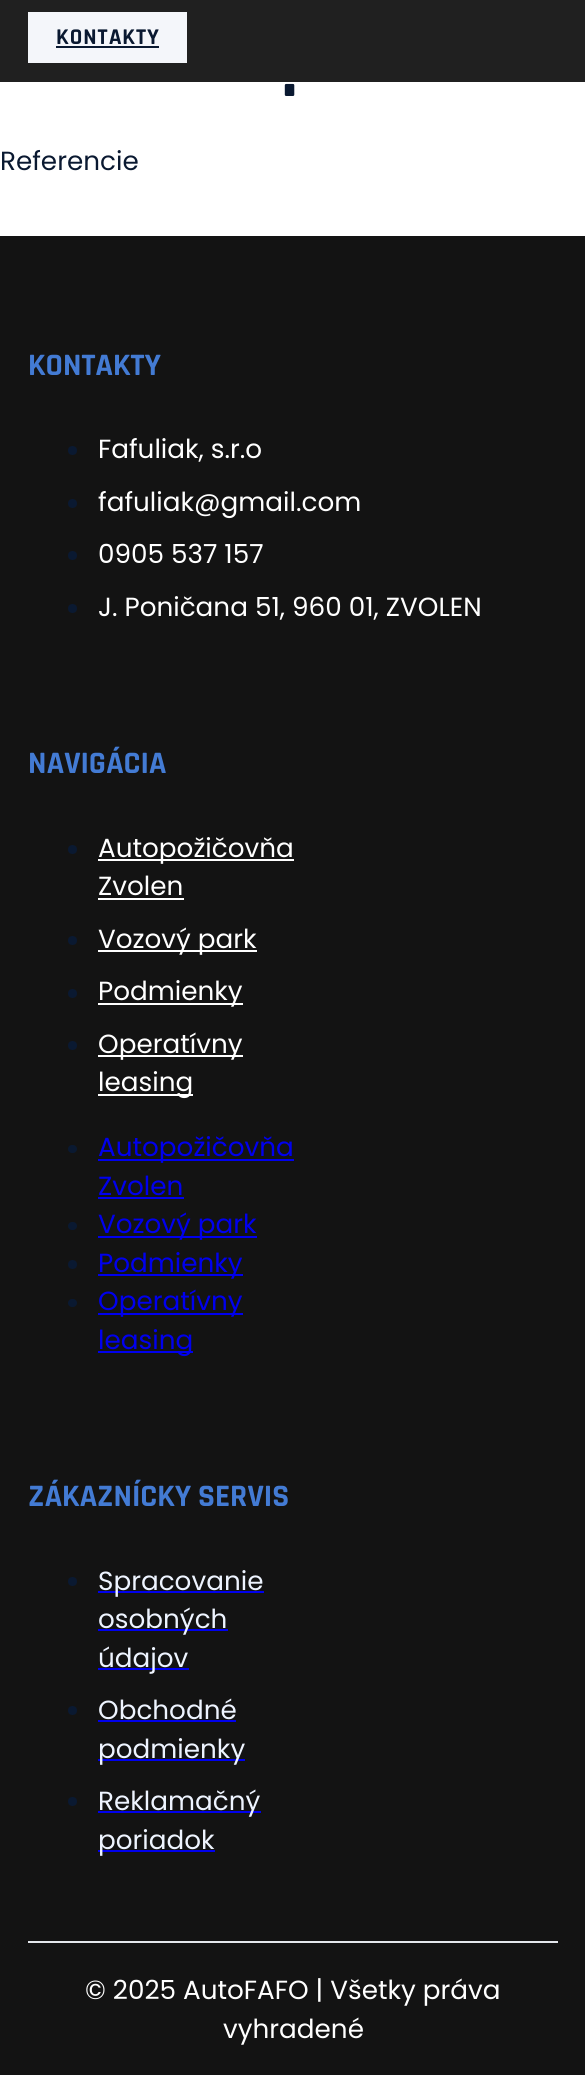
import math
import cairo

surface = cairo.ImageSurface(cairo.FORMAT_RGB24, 585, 2075)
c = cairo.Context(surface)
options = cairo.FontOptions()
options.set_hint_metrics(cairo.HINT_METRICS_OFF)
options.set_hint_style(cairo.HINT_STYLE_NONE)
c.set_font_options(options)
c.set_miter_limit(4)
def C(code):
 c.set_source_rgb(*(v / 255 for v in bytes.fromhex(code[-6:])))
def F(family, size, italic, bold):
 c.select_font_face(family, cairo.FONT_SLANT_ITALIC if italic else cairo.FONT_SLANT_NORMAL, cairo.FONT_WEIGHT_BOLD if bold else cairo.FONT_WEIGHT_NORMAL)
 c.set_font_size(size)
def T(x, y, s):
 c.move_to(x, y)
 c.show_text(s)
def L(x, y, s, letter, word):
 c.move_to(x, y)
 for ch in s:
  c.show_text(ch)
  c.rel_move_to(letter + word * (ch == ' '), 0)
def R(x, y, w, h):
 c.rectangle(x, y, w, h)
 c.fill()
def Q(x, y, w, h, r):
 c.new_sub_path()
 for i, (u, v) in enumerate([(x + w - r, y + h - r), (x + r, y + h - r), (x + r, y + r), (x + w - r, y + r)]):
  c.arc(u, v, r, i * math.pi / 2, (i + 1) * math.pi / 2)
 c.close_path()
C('ffffff')
c.paint()
C('202020')
R(0,0,585,82)
C('f4f6fa')
R(28,12,159,51)
F('Rajdhani',22.75,0,1)
C('0a1931')
L(56,44,'KONTAKTY',1,0)
R(56,46,103,2)
F('Rajdhani',74,0,1)
T(282,96,'.')
F('Poppins',26.25,0,0)
T(0,170,'Referencie')
C('131313')
R(0,236,585,1839)
C('e4e7ec')
R(28,1941,530,2)
F('Rajdhani',31.5,0,1)
C('437bd4')
T(28,375,'KONTAKTY')
C('0a1931')
c.new_path()
c.arc(72.5,450.5,4.5,0,2 * math.pi)
c.fill()
F('Poppins',26.25,0,0)
C('ffffff')
T(98,458,'Fafuliak, s.r.o')
C('0a1931')
c.new_path()
c.arc(72.5,503.5,4.5,0,2 * math.pi)
c.fill()
C('ffffff')
T(98,511,'fafuliak@gmail.com')
C('0a1931')
c.new_path()
c.arc(72.5,555.5,4.5,0,2 * math.pi)
c.fill()
C('ffffff')
T(98,563,'0905 537 157')
C('0a1931')
c.new_path()
c.arc(72.5,608.5,4.5,0,2 * math.pi)
c.fill()
C('ffffff')
T(98,616,'J. Poničana 51, 960 01, ZVOLEN')
F('Rajdhani',31.5,0,1)
C('437bd4')
T(28,773,'NAVIGÁCIA')
C('0a1931')
c.new_path()
c.arc(72.5,849.5,4.5,0,2 * math.pi)
c.fill()
C('ffffff')
R(98,859,196,2)
F('Poppins',26.25,0,0)
T(98,857,'Autopožičovňa')
T(98,895,'Zvolen')
R(98,898,86,2)
C('0a1931')
c.new_path()
c.arc(72.5,940.5,4.5,0,2 * math.pi)
c.fill()
C('ffffff')
R(98,950,159,2)
T(98,948,'Vozový park')
C('0a1931')
c.new_path()
c.arc(72.5,993.5,4.5,0,2 * math.pi)
c.fill()
C('ffffff')
R(98,1003,145,2)
T(98,1000,'Podmienky')
C('0a1931')
c.new_path()
c.arc(72.5,1045.5,4.5,0,2 * math.pi)
c.fill()
C('ffffff')
R(98,1055,145,2)
T(98,1053,'Operatívny')
R(98,1094,95,2)
T(98,1091,'leasing')
C('0a1931')
Q(68,1145,9,8,4)
c.fill()
C('0000ee')
R(98,1159,196,2)
T(98,1156,'Autopožičovňa')
T(98,1195,'Zvolen')
R(98,1197,86,2)
C('0a1931')
Q(68,1222,9,8,4)
c.fill()
C('0000ee')
R(98,1236,159,2)
T(98,1233,'Vozový park')
C('0a1931')
c.new_path()
c.arc(72.5,1264.5,4.5,0,2 * math.pi)
c.fill()
C('0000ee')
R(98,1274,145,2)
T(98,1272,'Podmienky')
C('0a1931')
Q(68,1299,9,8,4)
c.fill()
C('0000ee')
R(98,1313,145,2)
T(98,1310,'Operatívny')
R(98,1351,95,2)
T(98,1349,'leasing')
F('Rajdhani',31.5,0,1)
C('437bd4')
T(28,1506,'ZÁKAZNÍCKY SERVIS')
C('0a1931')
c.new_path()
c.arc(72.5,1581.5,4.5,0,2 * math.pi)
c.fill()
C('0000ee')
R(98,1591,166,2)
F('Poppins',26.25,0,0)
C('eef4ff')
T(98,1590,'Spracovanie')
C('0000ee')
R(98,1629,130,2)
C('eef4ff')
T(98,1628,'osobných')
C('0000ee')
R(98,1668,91,2)
C('eef4ff')
T(98,1667,'údajov')
C('0a1931')
c.new_path()
c.arc(72.5,1710.5,4.5,0,2 * math.pi)
c.fill()
C('eef4ff')
T(98,1719,'Obchodné')
C('0000ee')
R(98,1720,138,2)
R(98,1759,147,2)
C('eef4ff')
T(98,1758,'podmienky')
C('0a1931')
c.new_path()
c.arc(72.5,1801.5,4.5,0,2 * math.pi)
c.fill()
C('0000ee')
R(98,1811,163,2)
C('eef4ff')
T(98,1810,'Reklamačný')
C('0000ee')
R(98,1850,117,2)
C('eef4ff')
T(98,1849,'poriadok')
C('ffffff')
T(85,1999,'© 2025 AutoFAFO | Všetky práva')
T(223,2038,'vyhradené')
surface.write_to_png('o.png')
